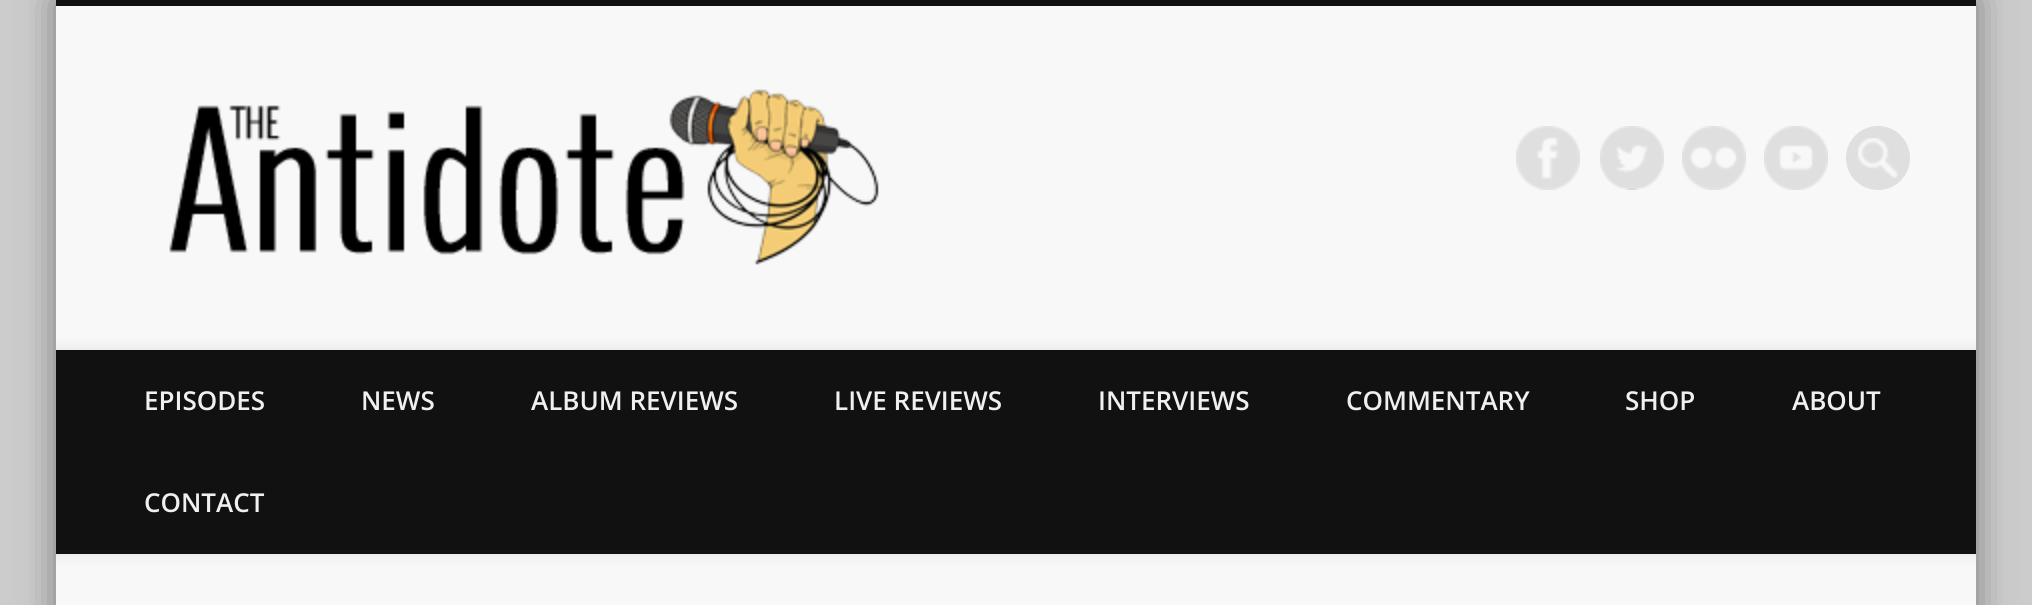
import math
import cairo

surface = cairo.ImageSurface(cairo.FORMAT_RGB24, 2032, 605)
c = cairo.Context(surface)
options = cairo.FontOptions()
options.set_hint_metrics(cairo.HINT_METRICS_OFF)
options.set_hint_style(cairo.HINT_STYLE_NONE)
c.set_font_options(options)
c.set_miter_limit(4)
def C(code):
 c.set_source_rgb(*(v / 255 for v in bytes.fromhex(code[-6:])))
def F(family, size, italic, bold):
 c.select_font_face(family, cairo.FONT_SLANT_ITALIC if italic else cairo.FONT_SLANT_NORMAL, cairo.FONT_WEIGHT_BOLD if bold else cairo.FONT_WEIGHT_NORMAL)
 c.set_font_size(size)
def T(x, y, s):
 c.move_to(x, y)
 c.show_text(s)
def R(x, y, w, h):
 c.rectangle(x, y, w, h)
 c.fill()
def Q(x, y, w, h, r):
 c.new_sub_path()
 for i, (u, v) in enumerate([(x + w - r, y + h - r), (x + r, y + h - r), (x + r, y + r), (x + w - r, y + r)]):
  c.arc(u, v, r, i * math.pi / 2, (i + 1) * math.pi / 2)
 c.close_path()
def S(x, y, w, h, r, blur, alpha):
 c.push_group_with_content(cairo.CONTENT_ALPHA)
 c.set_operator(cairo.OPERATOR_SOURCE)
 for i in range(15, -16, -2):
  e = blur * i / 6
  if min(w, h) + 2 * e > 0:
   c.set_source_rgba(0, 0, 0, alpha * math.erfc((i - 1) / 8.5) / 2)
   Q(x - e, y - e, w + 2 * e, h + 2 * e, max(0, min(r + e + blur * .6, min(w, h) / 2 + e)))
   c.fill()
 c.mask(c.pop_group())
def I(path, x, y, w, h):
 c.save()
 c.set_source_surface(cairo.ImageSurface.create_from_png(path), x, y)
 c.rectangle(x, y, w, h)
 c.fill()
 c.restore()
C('cccccc')
c.paint()
C('000000')
S(56,0,1920,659,0,18,.4)
C('f8f8f8')
R(56,6,1920,599)
C('111111')
R(56,0,1920,6)
I('1.png',169,89,710,176)
I('2.png',1516,126,64,64)
I('3.png',1600,126,64,64)
I('4.png',1682,126,64,64)
I('5.png',1764,126,64,64)
C('dfdfdf')
c.arc(1878,158,32,0,2 * math.pi)
c.fill()
I('6.png',1858,138,40,40)
c.save()
c.rectangle(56,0,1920,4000)
c.clip()
C('000000')
S(56,350,1920,204,0,7,.1)
c.restore()
C('111111')
R(56,350,1920,204)
F('Open Sans SemiBold',26,0,0)
C('f0f0f0')
T(144,410,'EPISODES')
T(361,410,'NEWS')
T(531,410,'ALBUM REVIEWS')
T(834,410,'LIVE REVIEWS')
T(1098,410,'INTERVIEWS')
T(1346,410,'COMMENTARY')
T(1625,410,'SHOP')
T(1792,410,'ABOUT')
T(144,512,'CONTACT')
surface.write_to_png('o.png')
